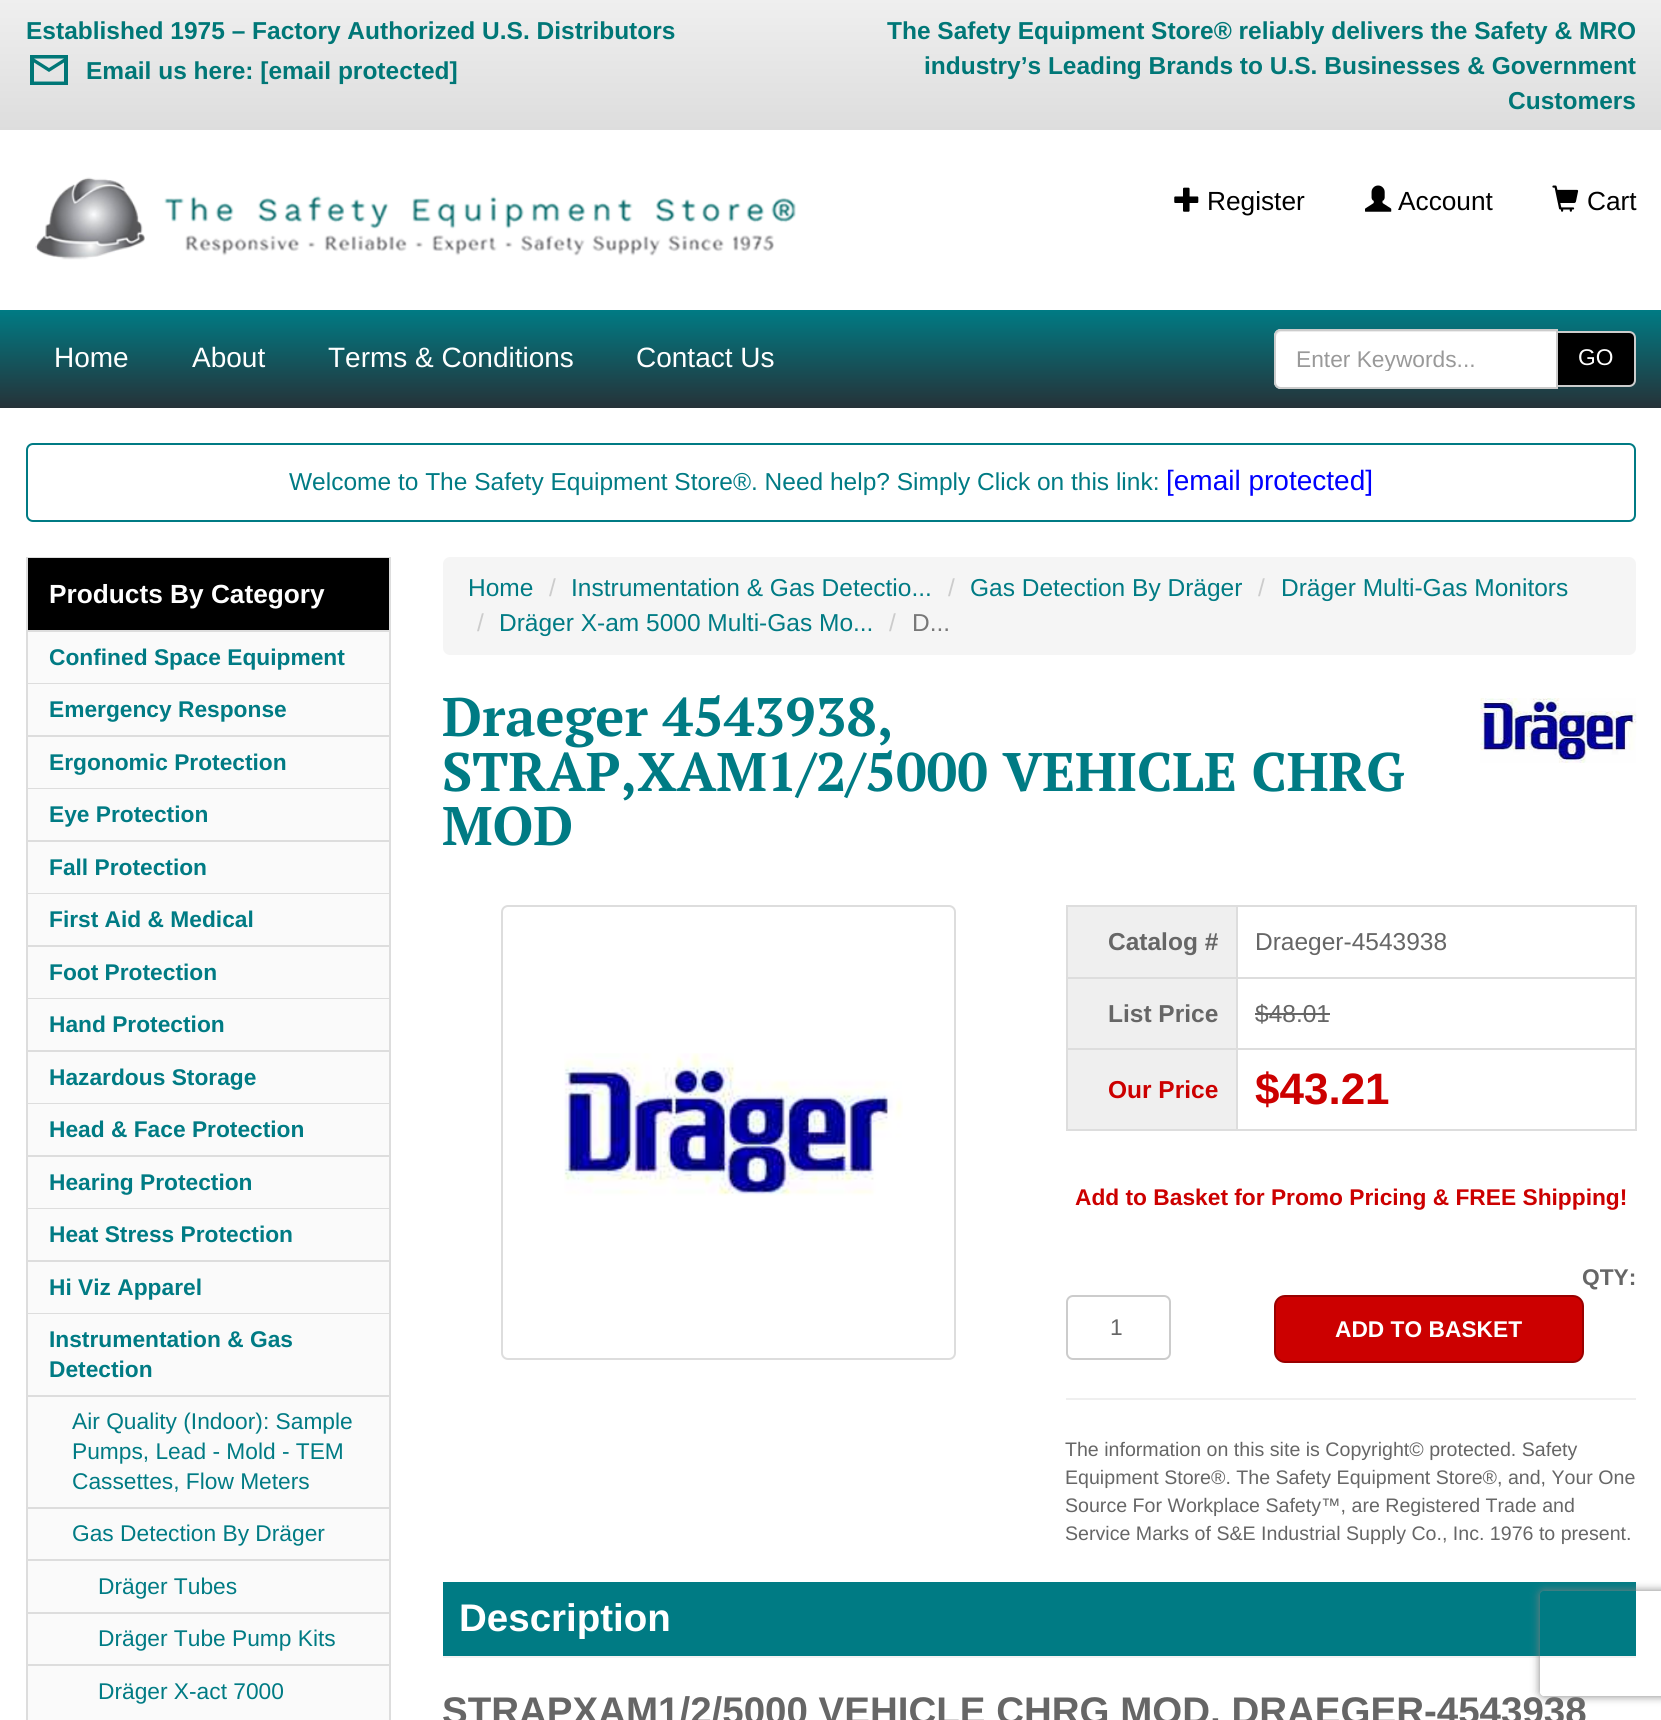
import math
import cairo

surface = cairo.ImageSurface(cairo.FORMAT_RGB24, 1661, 1720)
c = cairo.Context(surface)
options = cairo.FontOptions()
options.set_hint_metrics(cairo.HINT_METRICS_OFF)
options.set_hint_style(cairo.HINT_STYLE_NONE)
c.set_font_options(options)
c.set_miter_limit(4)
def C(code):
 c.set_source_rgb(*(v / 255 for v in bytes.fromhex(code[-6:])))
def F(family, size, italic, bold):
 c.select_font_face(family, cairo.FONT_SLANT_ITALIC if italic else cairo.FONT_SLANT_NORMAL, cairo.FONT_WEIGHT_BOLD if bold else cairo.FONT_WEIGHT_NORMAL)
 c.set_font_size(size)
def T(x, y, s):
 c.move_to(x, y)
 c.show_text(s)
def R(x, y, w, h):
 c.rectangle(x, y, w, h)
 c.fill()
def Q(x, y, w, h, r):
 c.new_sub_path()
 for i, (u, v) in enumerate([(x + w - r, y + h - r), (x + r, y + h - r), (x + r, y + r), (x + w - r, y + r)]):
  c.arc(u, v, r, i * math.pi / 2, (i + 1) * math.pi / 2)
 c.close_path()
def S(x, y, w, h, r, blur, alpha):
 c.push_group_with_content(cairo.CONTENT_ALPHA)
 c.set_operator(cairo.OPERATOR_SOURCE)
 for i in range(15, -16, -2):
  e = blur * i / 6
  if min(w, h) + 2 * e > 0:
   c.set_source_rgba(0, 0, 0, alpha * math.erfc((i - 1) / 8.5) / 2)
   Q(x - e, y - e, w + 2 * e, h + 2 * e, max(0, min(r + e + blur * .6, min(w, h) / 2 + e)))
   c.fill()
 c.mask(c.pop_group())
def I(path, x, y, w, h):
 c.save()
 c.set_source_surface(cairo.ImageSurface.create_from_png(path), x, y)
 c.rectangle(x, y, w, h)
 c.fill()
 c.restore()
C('ffffff')
c.paint()
gradient = cairo.LinearGradient(831,0,831,130)
gradient.add_color_stop_rgba(0,0.937,0.937,0.937,1)
gradient.add_color_stop_rgba(1,0.867,0.867,0.867,1)
c.set_source(gradient)
R(0,0,1661,130)
F('Liberation Sans',24.5,0,1)
C('007777')
T(26,39,'Established 1975 – Factory Authorized U.S. Distributors')
c.new_path()
c.move_to(30,55)
c.line_to(30,85)
c.line_to(68,85)
c.line_to(68,55)
c.close_path()
c.move_to(64,58.5)
c.line_to(49,68)
c.line_to(34,58.5)
c.close_path()
c.move_to(64,81.5)
c.line_to(34,81.5)
c.line_to(34,62.5)
c.line_to(49,72)
c.line_to(64,62.5)
c.close_path()
c.fill()
T(86,79,'Email us here: [email protected]')
T(887,39,'The Safety Equipment Store® reliably delivers the Safety & MRO')
T(924,74,'industry’s Leading Brands to U.S. Businesses & Government')
T(1508,109,'Customers')
I('1.png',35,177,761,83)
I('2.png',1174,187,25,25)
F('Liberation Sans',26.25,0,0)
C('000000')
T(1207,210,'Register')
I('3.png',1365,185,27,27)
T(1398,210,'Account')
I('4.png',1552,185,27,27)
T(1587,210,'Cart')
gradient = cairo.LinearGradient(831,310,831,408)
gradient.add_color_stop_rgba(0,0,0.482,0.518,1)
gradient.add_color_stop_rgba(1,0.149,0.196,0.22,1)
c.set_source(gradient)
R(0,310,1661,98)
F('Liberation Sans',28,0,0)
C('ffffff')
T(54,367,'Home')
T(192,367,'About')
T(328,367,'Terms & Conditions')
T(636,367,'Contact Us')
c.new_path()
c.move_to(1281,329)
c.line_to(1558,329)
c.line_to(1558,389)
c.line_to(1281,389)
c.curve_to(1277,389,1274,386,1274,382)
c.line_to(1274,336)
c.curve_to(1274,332,1277,329,1281,329)
c.close_path()
c.fill()
C('ececec')
c.new_path()
c.move_to(1281,332)
c.line_to(1556,332)
c.line_to(1556,331)
c.line_to(1280,331)
c.curve_to(1276,332,1276,335,1276,338)
c.curve_to(1276,335,1278,332,1281,332)
c.close_path()
c.fill()
c.new_path()
c.move_to(1281,330)
c.line_to(1557,330)
c.line_to(1557,388)
c.line_to(1281,388)
c.curve_to(1277.5,388,1275,385.5,1275,382)
c.line_to(1275,336)
c.curve_to(1275,332.5,1277.5,330,1281,330)
c.close_path()
C('cccccc')
c.stroke()
c.save()
c.rectangle(1297,345,238,26)
c.clip()
F('Liberation Sans',22.75,0,0)
C('999999')
T(1296,367,'Enter Keywords...')
c.restore()
C('000000')
c.new_path()
c.move_to(1557,332)
c.line_to(1629,332)
c.curve_to(1632.5,332,1635,334.5,1635,338)
c.line_to(1635,380)
c.curve_to(1635,383.5,1632.5,386,1629,386)
c.line_to(1557,386)
c.close_path()
c.fill_preserve()
C('cccccc')
c.stroke()
F('Liberation Sans',22.75,0,0)
C('ffffff')
T(1578,365,'GO')
Q(27,444,1608,77,6)
C('007b84')
c.stroke()
F('Liberation Sans',24.5,0,0)
T(289,490,'Welcome to The Safety Equipment Store®. Need help? Simply Click on this link:')
F('Liberation Sans',28,0,0)
C('0000ff')
T(1166,490,'[email protected]')
C('dddddd')
R(26,557,364,1)
R(389,557,2,1163)
R(26,557,2,1163)
C('000000')
R(28,558,361,72)
C('dddddd')
R(28,630,361,2)
F('Liberation Sans',26.25,0,1)
C('ffffff')
T(49,603,'Products By Category')
C('fafafa')
R(28,632,361,51)
C('dddddd')
R(28,683,361,1)
F('Liberation Sans',22.75,0,1)
C('007b84')
T(49,665,'Confined Space Equipment')
C('fafafa')
R(28,684,361,51)
C('dddddd')
R(28,735,361,2)
C('007b84')
T(49,717,'Emergency Response')
C('fafafa')
R(28,737,361,51)
C('dddddd')
R(28,788,361,1)
C('007b84')
T(49,770,'Ergonomic Protection')
C('fafafa')
R(28,789,361,51)
C('dddddd')
R(28,840,361,2)
C('007b84')
T(49,822,'Eye Protection')
C('fafafa')
R(28,842,361,51)
C('dddddd')
R(28,893,361,1)
C('007b84')
T(49,875,'Fall Protection')
C('fafafa')
R(28,894,361,51)
C('dddddd')
R(28,945,361,2)
C('007b84')
T(49,927,'First Aid & Medical')
C('fafafa')
R(28,947,361,51)
C('dddddd')
R(28,998,361,1)
C('007b84')
T(49,980,'Foot Protection')
C('fafafa')
R(28,999,361,51)
C('dddddd')
R(28,1050,361,2)
C('007b84')
T(49,1032,'Hand Protection')
C('fafafa')
R(28,1052,361,51)
C('dddddd')
R(28,1103,361,1)
C('007b84')
T(49,1085,'Hazardous Storage')
C('fafafa')
R(28,1104,361,51)
C('dddddd')
R(28,1155,361,2)
C('007b84')
T(49,1137,'Head & Face Protection')
C('fafafa')
R(28,1157,361,51)
C('dddddd')
R(28,1208,361,1)
C('007b84')
T(49,1190,'Hearing Protection')
C('fafafa')
R(28,1209,361,51)
C('dddddd')
R(28,1260,361,2)
C('007b84')
T(49,1242,'Heat Stress Protection')
C('fafafa')
R(28,1262,361,51)
C('dddddd')
R(28,1313,361,1)
C('007b84')
T(49,1295,'Hi Viz Apparel')
C('fafafa')
R(28,1314,361,81)
C('dddddd')
R(28,1395,361,2)
C('007b84')
T(49,1347,'Instrumentation & Gas')
T(49,1377,'Detection')
C('fafafa')
R(28,1397,361,110)
C('dddddd')
R(28,1507,361,2)
F('Liberation Sans',22.75,0,0)
C('007b84')
T(72,1429,'Air Quality (Indoor): Sample')
T(72,1459,'Pumps, Lead - Mold - TEM')
T(72,1489,'Cassettes, Flow Meters')
C('fafafa')
R(28,1509,361,50)
C('dddddd')
R(28,1559,361,2)
C('007b84')
T(72,1541,'Gas Detection By Dräger')
C('fafafa')
R(28,1561,361,51)
C('dddddd')
R(28,1612,361,2)
C('007b84')
T(98,1594,'Dräger Tubes')
C('fafafa')
R(28,1614,361,50)
C('dddddd')
R(28,1664,361,2)
C('007b84')
T(98,1646,'Dräger Tube Pump Kits')
C('fafafa')
R(28,1666,361,54)
C('007b84')
T(98,1699,'Dräger X-act 7000')
C('f5f5f5')
Q(443,557,1193,98,7)
c.fill()
F('Liberation Sans',24.5,0,0)
C('007b84')
T(468,596,'Home')
C('cccccc')
T(549,596,'/')
C('007b84')
T(571,596,'Instrumentation & Gas Detectio...')
C('cccccc')
T(948,596,'/')
C('007b84')
T(970,596,'Gas Detection By Dräger')
C('cccccc')
T(1258,596,'/')
C('007b84')
T(1281,596,'Dräger Multi-Gas Monitors')
C('cccccc')
T(477,631,'/')
C('007b84')
T(499,631,'Dräger X-am 5000 Multi-Gas Mo...')
C('cccccc')
T(889,631,'/')
C('777777')
T(912,631,'D...')
F('PT Serif',54.25,0,1)
C('007b84')
T(442,736,'Draeger 4543938,')
T(442,791,'STRAP,XAM1/2/5000 VEHICLE CHRG')
T(442,845,'MOD')
I('5.png',1480,698,157,65)
Q(502,906,453,453,6)
C('dddddd')
c.stroke()
I('6.png',564,1053,339,143)
R(1066,905,570,2)
R(1066,905,2,226)
C('efefef')
R(1068,907,168,70)
C('dddddd')
R(1635,905,2,226)
R(1236,1129,400,2)
R(1236,1048,2,83)
R(1236,1048,400,2)
R(1236,977,2,73)
R(1236,977,400,2)
R(1236,905,2,73)
R(1066,977,171,2)
F('Liberation Sans',24.5,0,1)
C('666666')
T(1108,950,'Catalog #')
F('Liberation Sans',24.5,0,0)
T(1255,950,'Draeger-4543938')
C('efefef')
R(1068,979,168,69)
C('dddddd')
R(1066,1048,171,2)
F('Liberation Sans',24.5,0,1)
C('666666')
T(1108,1022,'List Price')
F('Liberation Sans',24.5,0,0)
T(1255,1022,'$48.01')
R(1255,1013,75,2)
C('efefef')
R(1068,1050,168,79)
C('dddddd')
R(1066,1129,171,2)
F('Liberation Sans',24.5,0,1)
C('cc0000')
T(1108,1098,'Our Price')
F('Liberation Sans',44,0,1)
T(1255,1104,'$43.21')
F('Liberation Sans',22.75,0,1)
T(1075,1205,'Add to Basket for Promo Pricing & FREE Shipping!')
C('666666')
T(1582,1285,'QTY:')
Q(1067,1296,103,63,6)
C('cccccc')
c.stroke()
F('Liberation Sans',22.75,0,0)
C('666666')
T(1110,1335,'1')
C('cc0000')
Q(1275,1296,308,66,10)
c.fill_preserve()
C('990000')
c.stroke()
F('Liberation Sans',22.75,0,1)
C('ffffff')
T(1335,1337,'ADD TO BASKET')
C('efefef')
R(1066,1398,570,2)
F('Liberation Sans',19.6,0,0)
C('666666')
T(1065,1456,'The information on this site is Copyright© protected. Safety')
T(1065,1484,'Equipment Store®. The Safety Equipment Store®, and, Your One')
T(1065,1512,'Source For Workplace Safety™, are Registered Trade and')
T(1065,1540,'Service Marks of S&E Industrial Supply Co., Inc. 1976 to present.')
C('007b84')
R(443,1582,1193,74)
C('f3f3f3')
R(443,1656,1193,2)
F('Liberation Sans',38.5,0,1)
C('ffffff')
T(459,1631,'Description')
C('666666')
T(442,1724,'STRAPXAM1/2/5000 VEHICLE CHRG MOD, DRAEGER-4543938')
c.save()
c.set_fill_rule(cairo.FILL_RULE_EVEN_ODD)
c.new_path()
c.move_to(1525,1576)
c.line_to(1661,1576)
c.line_to(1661,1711)
c.line_to(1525,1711)
c.close_path()
c.move_to(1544,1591)
c.line_to(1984,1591)
c.curve_to(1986,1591,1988,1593,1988,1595)
c.line_to(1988,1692)
c.curve_to(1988,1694,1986,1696,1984,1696)
c.line_to(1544,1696)
c.curve_to(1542,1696,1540,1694,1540,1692)
c.line_to(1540,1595)
c.curve_to(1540,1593,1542,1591,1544,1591)
c.close_path()
c.clip()
C('808080')
S(1540,1591,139,105,4,4.5,1)
c.restore()
surface.write_to_png('o.png')
